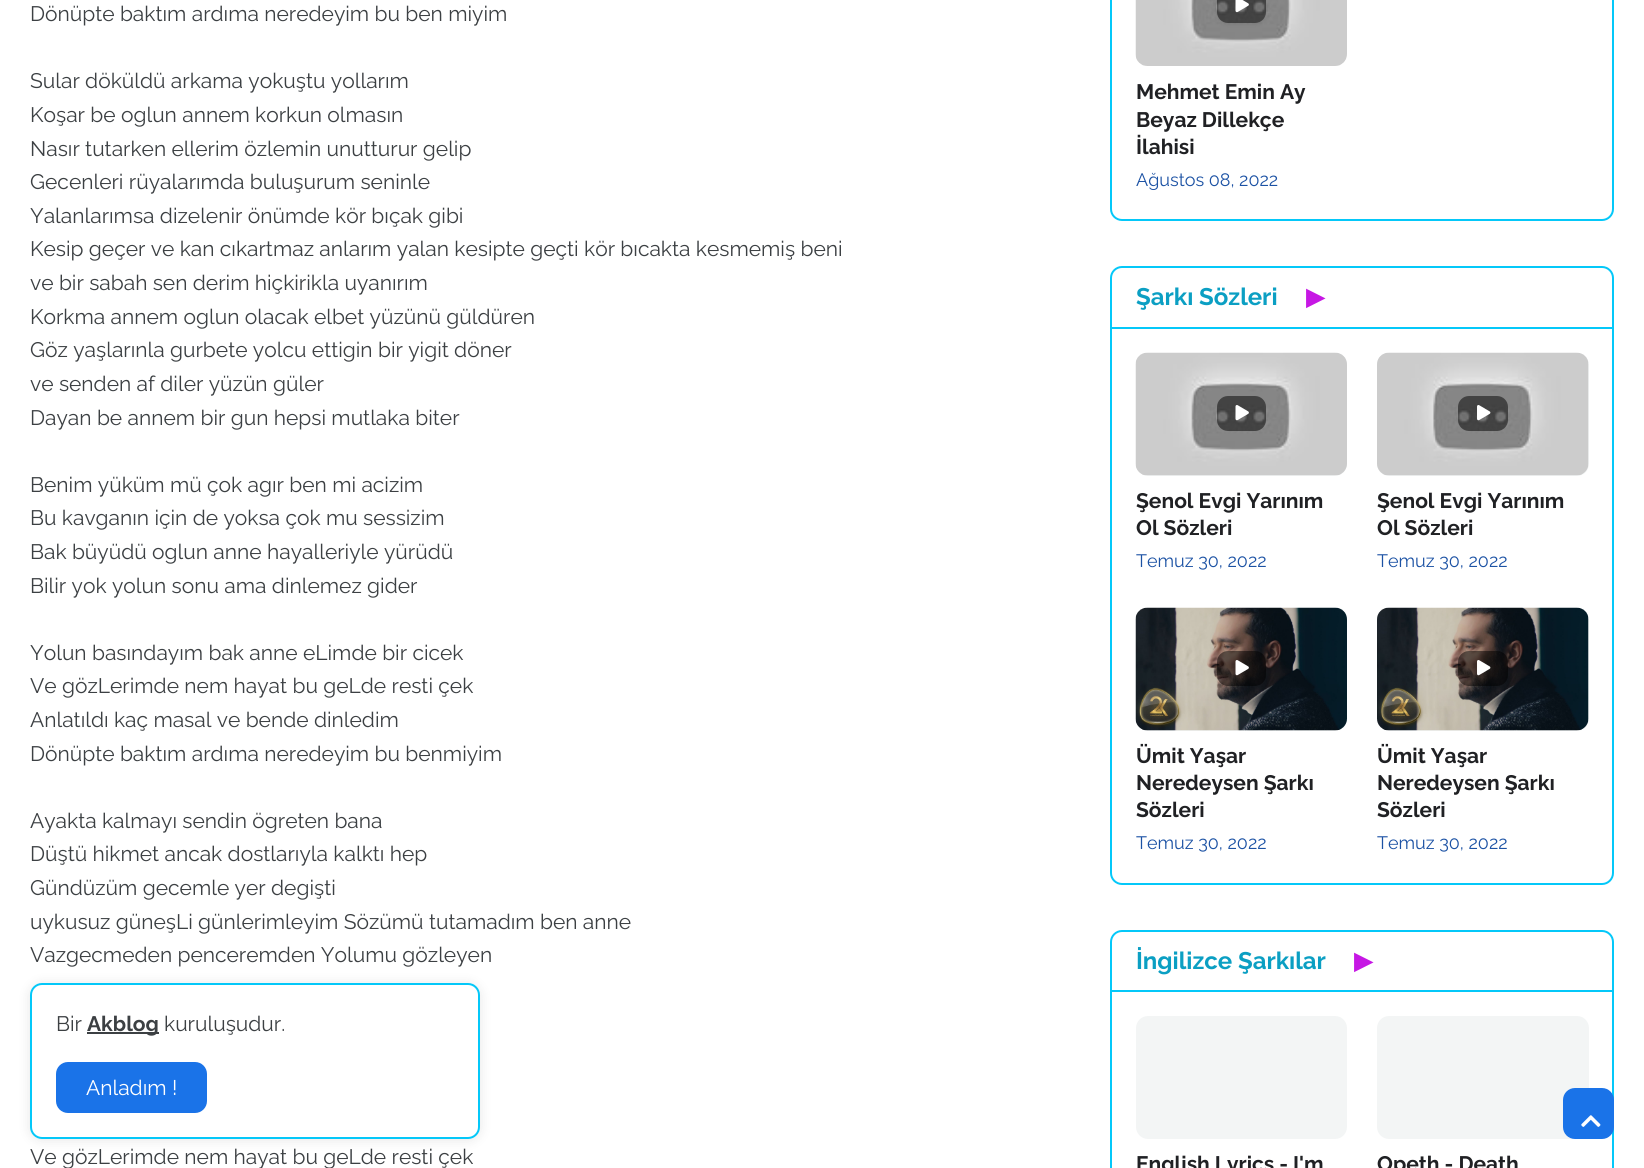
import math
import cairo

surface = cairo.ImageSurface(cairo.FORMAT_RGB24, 1644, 1168)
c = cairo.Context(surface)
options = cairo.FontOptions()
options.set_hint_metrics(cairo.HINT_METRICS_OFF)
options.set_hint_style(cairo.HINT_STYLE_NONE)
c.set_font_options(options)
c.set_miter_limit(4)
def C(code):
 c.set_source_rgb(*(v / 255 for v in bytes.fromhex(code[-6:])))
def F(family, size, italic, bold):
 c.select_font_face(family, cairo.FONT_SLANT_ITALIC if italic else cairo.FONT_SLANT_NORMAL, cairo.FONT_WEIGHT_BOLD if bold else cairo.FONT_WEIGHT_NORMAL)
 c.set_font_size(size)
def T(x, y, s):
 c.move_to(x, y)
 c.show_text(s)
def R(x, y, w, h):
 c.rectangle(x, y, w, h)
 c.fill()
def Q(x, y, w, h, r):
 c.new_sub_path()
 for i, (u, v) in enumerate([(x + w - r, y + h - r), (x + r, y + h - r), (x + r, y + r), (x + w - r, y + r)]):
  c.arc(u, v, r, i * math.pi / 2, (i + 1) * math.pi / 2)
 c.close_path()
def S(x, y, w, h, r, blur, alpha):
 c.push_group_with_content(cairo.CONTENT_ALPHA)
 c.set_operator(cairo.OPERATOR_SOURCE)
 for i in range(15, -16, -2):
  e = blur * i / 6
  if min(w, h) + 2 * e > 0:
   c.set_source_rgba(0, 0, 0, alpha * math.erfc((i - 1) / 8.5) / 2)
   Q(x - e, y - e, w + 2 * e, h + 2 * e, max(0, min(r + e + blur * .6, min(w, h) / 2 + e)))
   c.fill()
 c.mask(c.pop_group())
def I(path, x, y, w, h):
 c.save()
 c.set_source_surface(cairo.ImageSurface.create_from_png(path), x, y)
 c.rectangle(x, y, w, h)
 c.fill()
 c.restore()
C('ffffff')
c.paint()
F('Raleway',21,0,0)
C('3c4043')
T(30,21,'Dönüpte baktım ardıma neredeyim bu ben miyim')
T(30,88,'Sular döküldü arkama yokuştu yollarım')
T(30,122,'Koşar be oglun annem korkun olmasın')
T(30,156,'Nasır tutarken ellerim özlemin unutturur gelip')
T(30,189,'Gecenleri rüyalarımda buluşurum seninle')
T(30,223,'Yalanlarımsa dizelenir önümde kör bıçak gibi')
T(30,256,'Kesip geçer ve kan cıkartmaz anlarım yalan kesipte geçti kör bıcakta kesmemiş beni')
T(30,290,'ve bir sabah sen derim hiçkirikla uyanırım')
T(30,324,'Korkma annem oglun olacak elbet yüzünü güldüren')
T(30,357,'Göz yaşlarınla gurbete yolcu ettigin bir yigit döner')
T(30,391,'ve senden af diler yüzün güler')
T(30,425,'Dayan be annem bir gun hepsi mutlaka biter')
T(30,492,'Benim yüküm mü çok agır ben mi acizim')
T(30,525,'Bu kavganın için de yoksa çok mu sessizim')
T(30,559,'Bak büyüdü oglun anne hayalleriyle yürüdü')
T(30,593,'Bilir yok yolun sonu ama dinlemez gider')
T(30,660,'Yolun basındayım bak anne eLimde bir cicek')
T(30,693,'Ve gözLerimde nem hayat bu geLde resti çek')
T(30,727,'Anlatıldı kaç masal ve bende dinledim')
T(30,761,'Dönüpte baktım ardıma neredeyim bu benmiyim')
T(30,828,'Ayakta kalmayı sendin ögreten bana')
T(30,861,'Düştü hikmet ancak dostlarıyla kalktı hep')
T(30,895,'Gündüzüm gecemle yer degişti')
T(30,929,'uykusuz güneşLi günlerimleyim Sözümü tutamadım ben anne')
T(30,962,'Vazgecmeden penceremden Yolumu gözleyen')
T(30,1164,'Ve gözLerimde nem hayat bu geLde resti çek')
Q(1111,-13,502,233,11)
C('04c8f9')
c.stroke()
I('2.png',1135,0,212,66)
c.save()
c.set_fill_rule(cairo.FILL_RULE_EVEN_ODD)
c.new_path()
c.move_to(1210,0)
c.line_to(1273,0)
c.line_to(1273,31)
c.line_to(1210,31)
c.close_path()
c.move_to(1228,-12)
c.line_to(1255,-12)
c.curve_to(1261,-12,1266,-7,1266,-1)
c.line_to(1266,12)
c.curve_to(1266,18,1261,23,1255,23)
c.line_to(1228,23)
c.curve_to(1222,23,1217,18,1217,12)
c.line_to(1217,-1)
c.curve_to(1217,-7,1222,-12,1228,-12)
c.close_path()
c.clip()
C('000000')
S(1217,-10,49,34,11,2,.1)
c.restore()
c.set_source_rgba(0,0,0,0.5)
Q(1217,-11,49,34,11)
c.fill()
I('1.png',1235,0,14,13)
F('Raleway',21,0,1)
C('202124')
T(1136,99,'Mehmet Emin Ay')
T(1136,127,'Beyaz Dillekçe')
T(1136,154,'İlahisi')
F('Raleway',18,0,0)
C('1c52a4')
T(1136,186,'Ağustos 08, 2022')
Q(1111,267,502,617,11)
C('04c8f9')
c.stroke()
R(1112,327,501,2)
F('Raleway',24,0,1)
C('0b9fc3')
T(1136,305,'Şarkı Sözleri')
F('DejaVu Sans',24,0,1)
C('c617e4')
T(1306,305,'▶')
C('f3f5f5')
Q(1136,353,211,123,12)
c.fill()
I('3.png',1135,352,212,124)
c.set_source_rgba(0,0,0,0.5)
Q(1217,396,49,35,11)
c.fill()
I('4.png',1235,405,14,16)
F('Raleway',21,0,1)
C('202124')
T(1136,508,'Şenol Evgi Yarınım')
T(1136,535,'Ol Sözleri')
F('Raleway',18,0,0)
C('1c52a4')
T(1136,567,'Temuz 30, 2022')
C('f3f5f5')
Q(1377,353,212,123,12)
c.fill()
I('5.png',1377,352,212,124)
c.set_source_rgba(0,0,0,0.5)
Q(1458,396,50,35,11)
c.fill()
I('6.png',1477,405,14,16)
F('Raleway',21,0,1)
C('202124')
T(1377,508,'Şenol Evgi Yarınım')
T(1377,535,'Ol Sözleri')
F('Raleway',18,0,0)
C('1c52a4')
T(1377,567,'Temuz 30, 2022')
C('f3f5f5')
Q(1136,608,211,123,12)
c.fill()
I('7.png',1135,607,212,124)
c.set_source_rgba(0,0,0,0.5)
Q(1217,651,49,35,11)
c.fill()
I('8.png',1235,660,14,16)
F('Raleway',21,0,1)
C('202124')
T(1136,763,'Ümit Yaşar')
T(1136,790,'Neredeysen Şarkı')
T(1136,817,'Sözleri')
F('Raleway',18,0,0)
C('1c52a4')
T(1136,849,'Temuz 30, 2022')
C('f3f5f5')
Q(1377,608,212,123,12)
c.fill()
I('9.png',1377,607,212,124)
c.set_source_rgba(0,0,0,0.5)
Q(1458,651,50,35,11)
c.fill()
I('10.png',1477,660,14,16)
F('Raleway',21,0,1)
C('202124')
T(1377,763,'Ümit Yaşar')
T(1377,790,'Neredeysen Şarkı')
T(1377,817,'Sözleri')
F('Raleway',18,0,0)
C('1c52a4')
T(1377,849,'Temuz 30, 2022')
Q(1111,931,502,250,11)
C('04c8f9')
c.stroke()
R(1112,990,501,2)
F('Raleway',24,0,1)
C('0b9fc3')
T(1136,969,'İngilizce Şarkılar')
F('DejaVu Sans',24,0,1)
C('c617e4')
T(1354,969,'▶')
C('f3f5f5')
Q(1136,1016,211,123,12)
c.fill()
F('Raleway',21,0,1)
C('202124')
T(1136,1171,'English Lyrics - I\'m')
C('f3f5f5')
Q(1377,1016,212,123,12)
c.fill()
C('202124')
T(1377,1171,'Opeth - Death')
C('000000')
S(30,984,450,156,12,6,.1)
C('ffffff')
Q(31,984,448,154,11)
c.fill_preserve()
C('04c8f9')
c.stroke()
F('Raleway',21,0,0)
C('3c4043')
T(56,1031,'Bir')
R(87,1032,72,2)
F('Raleway',21,0,1)
T(87,1031,'Akblog')
F('Raleway',21,0,0)
T(164,1031,'kuruluşudur.')
C('1a73e8')
Q(56,1062,151,51,12)
c.fill()
C('ffffff')
T(86,1095,'Anladım !')
C('1a73e8')
Q(1563,1088,51,51,12)
c.fill()
I('11.png',1581,1115,20,12)
surface.write_to_png('o.png')
